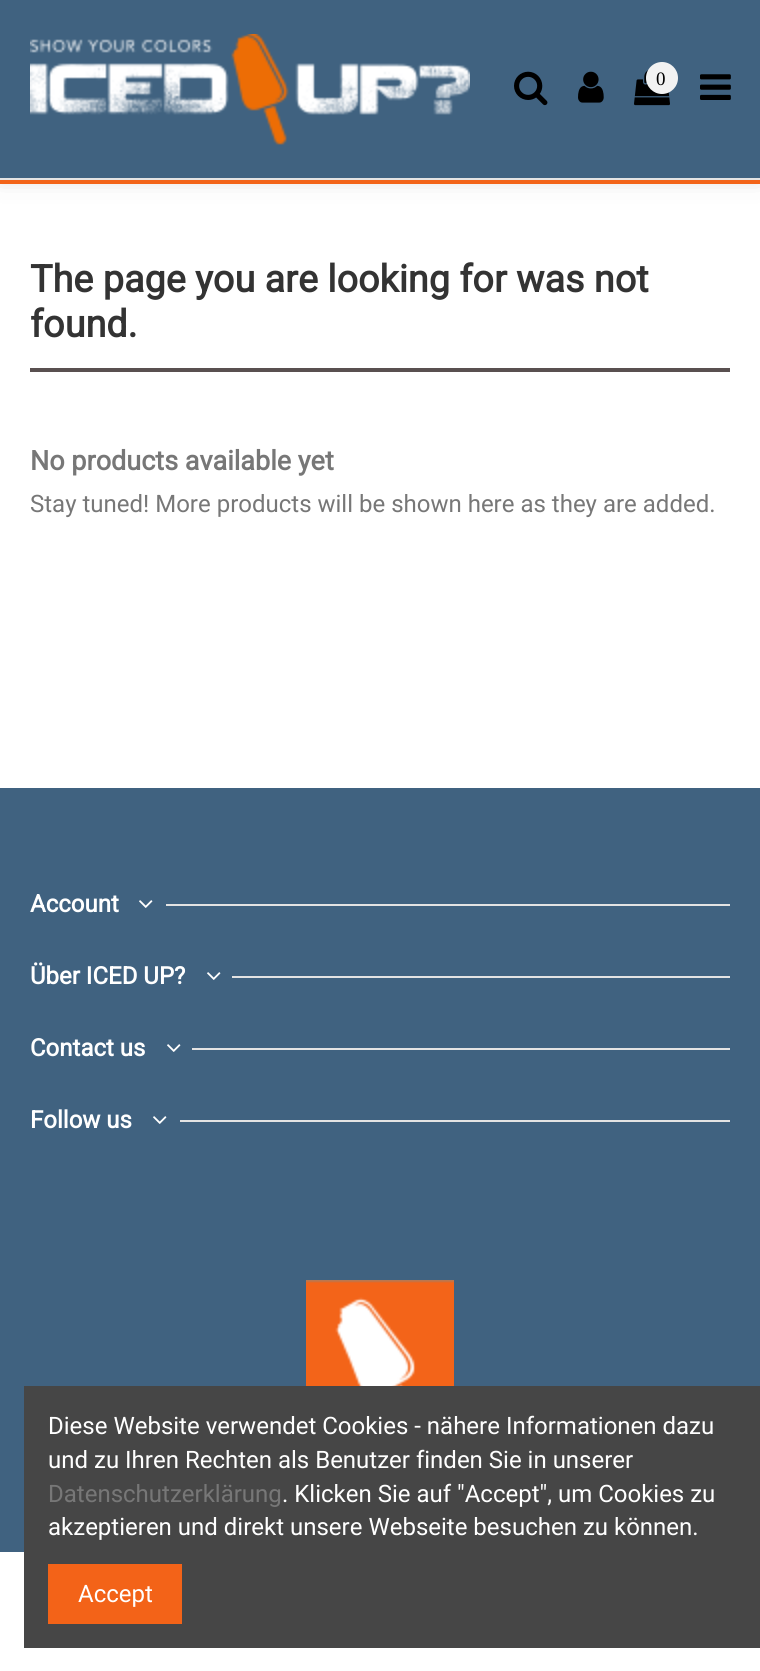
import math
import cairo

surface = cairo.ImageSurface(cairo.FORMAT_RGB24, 760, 1671)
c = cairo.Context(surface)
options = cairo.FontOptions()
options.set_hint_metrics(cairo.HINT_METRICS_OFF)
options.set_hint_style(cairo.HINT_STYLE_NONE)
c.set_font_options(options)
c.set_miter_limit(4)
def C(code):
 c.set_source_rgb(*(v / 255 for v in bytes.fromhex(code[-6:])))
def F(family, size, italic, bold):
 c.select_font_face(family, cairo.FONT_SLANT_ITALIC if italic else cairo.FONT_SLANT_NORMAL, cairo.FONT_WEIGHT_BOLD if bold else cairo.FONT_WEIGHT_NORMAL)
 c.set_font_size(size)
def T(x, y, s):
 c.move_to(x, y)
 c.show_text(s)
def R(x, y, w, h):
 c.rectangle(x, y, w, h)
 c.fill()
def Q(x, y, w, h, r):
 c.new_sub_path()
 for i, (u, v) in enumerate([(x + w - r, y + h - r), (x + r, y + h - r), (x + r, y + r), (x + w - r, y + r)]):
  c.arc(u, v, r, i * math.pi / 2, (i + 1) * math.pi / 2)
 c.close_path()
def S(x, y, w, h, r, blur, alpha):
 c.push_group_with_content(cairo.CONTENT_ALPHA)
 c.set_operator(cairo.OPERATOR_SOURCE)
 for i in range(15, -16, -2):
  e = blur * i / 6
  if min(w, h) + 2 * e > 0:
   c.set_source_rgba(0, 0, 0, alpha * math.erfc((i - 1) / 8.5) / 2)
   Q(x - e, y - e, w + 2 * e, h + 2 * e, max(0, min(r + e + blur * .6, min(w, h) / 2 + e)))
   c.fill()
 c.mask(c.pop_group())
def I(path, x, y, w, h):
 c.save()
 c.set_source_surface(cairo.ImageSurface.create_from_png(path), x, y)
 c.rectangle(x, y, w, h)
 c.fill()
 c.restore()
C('ffffff')
c.paint()
C('3d3939')
S(0,-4,760,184,0,11,.17)
C('406280')
R(0,0,760,178)
C('f36419')
R(0,180,760,4)
C('e3e3e3')
R(0,178,760,2)
I('1.png',30,34,440,111)
I('2.png',514,71,34,35)
I('3.png',578,71,26,32)
I('4.png',634,69,36,37)
C('f2f2f2')
c.arc(662,78,16,0,2 * math.pi)
c.fill()
F('Liberation Serif',19,0,0)
C('000000')
T(656,85,'0')
I('5.png',700,74,31,26)
C('595050')
R(30,368,700,4)
F('Roboto',37.75,0,1)
C('333333')
T(30,292,'The page you are looking for was not')
T(30,337,'found.')
F('Roboto',27,0,1)
C('777777')
T(30,470,'No products available yet')
F('Roboto',24,0,0)
T(30,512,'Stay tuned! More products will be shown here as they are added.')
C('406280')
R(0,788,760,764)
F('Roboto',24,0,1)
C('ffffff')
T(30,912,'Account')
I('6.png',139,900,14,8)
C('e3e3e3')
R(166,904,564,2)
C('ffffff')
T(30,984,'Über ICED UP?')
I('6.png',207,972,14,8)
C('e3e3e3')
R(232,976,498,2)
C('ffffff')
T(30,1056,'Contact us')
I('6.png',167,1044,14,8)
C('e3e3e3')
R(192,1048,538,2)
C('ffffff')
T(30,1128,'Follow us')
I('6.png',153,1116,14,8)
C('e3e3e3')
R(180,1120,550,2)
I('7.png',306,1280,148,106)
C('464646')
R(24,1386,736,262)
F('Roboto',24,0,0)
C('ffffff')
T(48,1434,'Diese Website verwendet Cookies - nähere Informationen dazu')
T(48,1468,'und zu Ihren Rechten als Benutzer finden Sie in unserer')
C('777777')
T(48,1502,'Datenschutzerklärung')
C('ffffff')
T(282,1502,'. Klicken Sie auf "Accept", um Cookies zu')
T(48,1535,'akzeptieren und direkt unsere Webseite besuchen zu können.')
C('f36318')
R(48,1564,134,60)
C('ffffff')
T(78,1602,'Accept')
surface.write_to_png('o.png')
